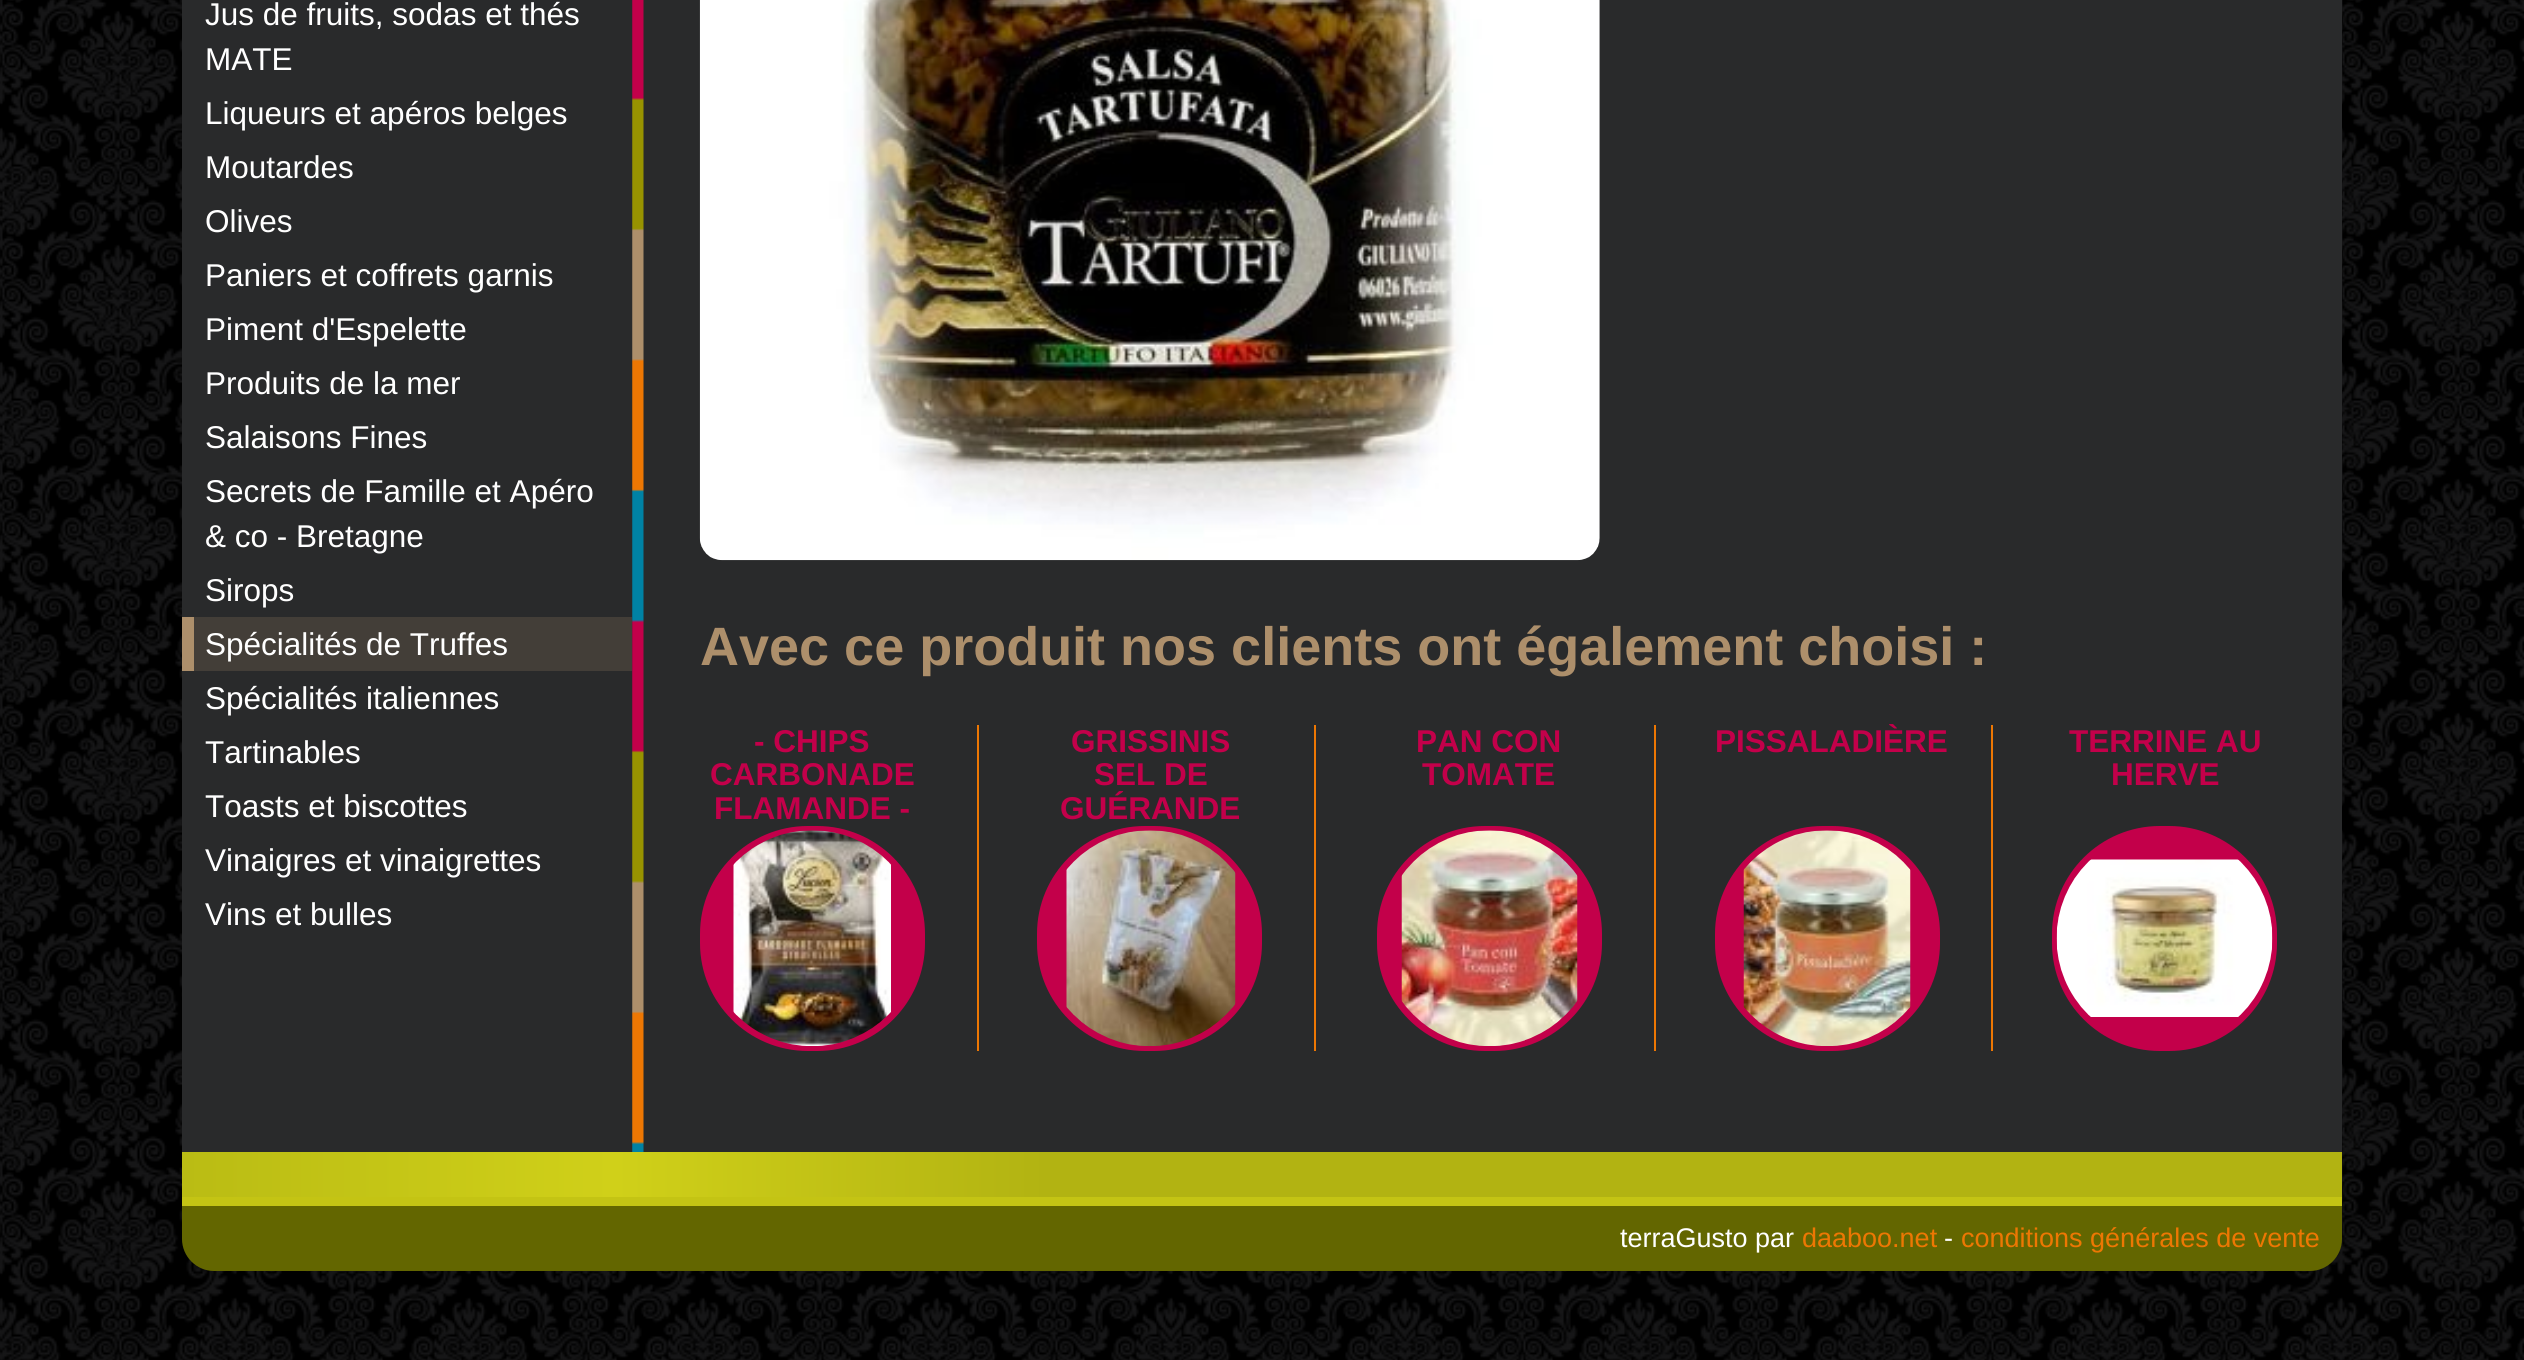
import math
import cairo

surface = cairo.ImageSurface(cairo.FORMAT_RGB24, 2524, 1360)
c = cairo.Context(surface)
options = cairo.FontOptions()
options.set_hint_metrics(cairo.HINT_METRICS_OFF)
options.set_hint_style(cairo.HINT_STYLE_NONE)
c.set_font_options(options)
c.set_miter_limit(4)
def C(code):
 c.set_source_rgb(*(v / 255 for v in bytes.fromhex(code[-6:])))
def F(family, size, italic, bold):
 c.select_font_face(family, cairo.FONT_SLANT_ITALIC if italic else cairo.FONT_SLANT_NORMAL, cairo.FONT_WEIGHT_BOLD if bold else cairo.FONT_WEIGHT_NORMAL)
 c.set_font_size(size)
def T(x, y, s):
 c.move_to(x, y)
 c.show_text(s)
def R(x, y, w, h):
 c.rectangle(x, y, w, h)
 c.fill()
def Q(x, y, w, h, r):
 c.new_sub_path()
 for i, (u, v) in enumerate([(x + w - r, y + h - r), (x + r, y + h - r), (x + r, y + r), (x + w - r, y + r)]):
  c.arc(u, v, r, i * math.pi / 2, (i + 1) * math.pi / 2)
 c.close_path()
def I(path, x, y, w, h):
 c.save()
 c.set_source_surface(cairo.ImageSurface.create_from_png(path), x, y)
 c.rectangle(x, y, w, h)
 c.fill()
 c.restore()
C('ffffff')
c.paint()
I('1.png',0,0,2524,1360)
C('292a2b')
R(182,0,2160,1152)
I('2.png',632,0,12,1152)
F('Liberation Sans',31.5,0,0)
C('ffffff')
T(205,25,'Jus de fruits, sodas et thés')
T(205,70,'MATE')
T(205,124,'Liqueurs et apéros belges')
T(205,178,'Moutardes')
T(205,232,'Olives')
T(205,286,'Paniers et coffrets garnis')
T(205,340,'Piment d\'Espelette')
T(205,394,'Produits de la mer')
T(205,448,'Salaisons Fines')
T(205,502,'Secrets de Famille et Apéro')
T(205,547,'& co - Bretagne')
T(205,601,'Sirops')
C('433e38')
R(194,617,438,54)
C('ad8f6b')
R(182,617,12,54)
C('ffffff')
T(205,655,'Spécialités de Truffes')
T(205,709,'Spécialités italiennes')
T(205,763,'Tartinables')
T(205,817,'Toasts et biscottes')
T(205,871,'Vinaigres et vinaigrettes')
T(205,925,'Vins et bulles')
I('3.png',699,0,901,561)
F('Liberation Sans',54,0,1)
C('ad8f6b')
T(700,665,'Avec ce produit nos clients ont également choisi :')
C('ed7703')
R(977,725,2,326)
F('Liberation Sans',31.5,0,1)
C('c3004a')
T(754,752,'- CHIPS')
T(710,785,'CARBONADE')
T(714,819,'FLAMANDE -')
Q(702.5,828.5,220,220,105.5)
c.fill_preserve()
c.set_line_width(5)
c.stroke()
I('4.png',733,830,158,216)
C('ed7703')
R(1314,725,2,326)
C('c3004a')
T(1071,752,'GRISSINIS')
T(1094,785,'SEL DE')
T(1060,819,'GUÉRANDE')
Q(1039.5,828.5,220,220,105.5)
c.fill_preserve()
c.stroke()
I('5.png',1066,830,170,216)
C('ed7703')
R(1654,725,2,326)
C('c3004a')
T(1416,752,'PAN CON')
T(1422,785,'TOMATE')
Q(1379.5,828.5,220,220,105.5)
c.fill_preserve()
c.stroke()
I('6.png',1401,830,177,216)
C('ed7703')
R(1991,725,2,326)
C('c3004a')
T(1715,752,'PISSALADIÈRE')
Q(1717.5,828.5,220,220,105.5)
c.fill_preserve()
c.stroke()
I('7.png',1743,830,168,216)
T(2069,752,'TERRINE AU')
T(2111,785,'HERVE')
Q(2054.5,828.5,220,220,105.5)
c.fill_preserve()
c.stroke()
I('8.png',2056,859,217,158)
C('636600')
c.new_path()
c.move_to(182,1152)
c.line_to(2342,1152)
c.line_to(2342,1239)
c.curve_to(2342,1256.5,2327.5,1271,2310,1271)
c.line_to(214,1271)
c.curve_to(196.5,1271,182,1256.5,182,1239)
c.close_path()
c.fill()
gradient = cairo.LinearGradient(182,1175,2342,1175)
gradient.add_color_stop_rgba(0,0.729,0.737,0.078,1)
gradient.add_color_stop_rgba(.2,0.816,0.816,0.098,1)
gradient.add_color_stop_rgba(.4,0.698,0.702,0.071,1)
c.set_source(gradient)
R(182,1152,2160,45)
C('c4c414')
R(182,1197,2160,9)
F('Liberation Sans',27,0,0)
C('ffffff')
T(1620,1247,'terraGusto par')
C('ed7703')
T(1802,1247,'daaboo.net')
C('ffffff')
T(1944,1247,'-')
C('ed7703')
T(1961,1247,'conditions générales de vente')
surface.write_to_png('o.png')
